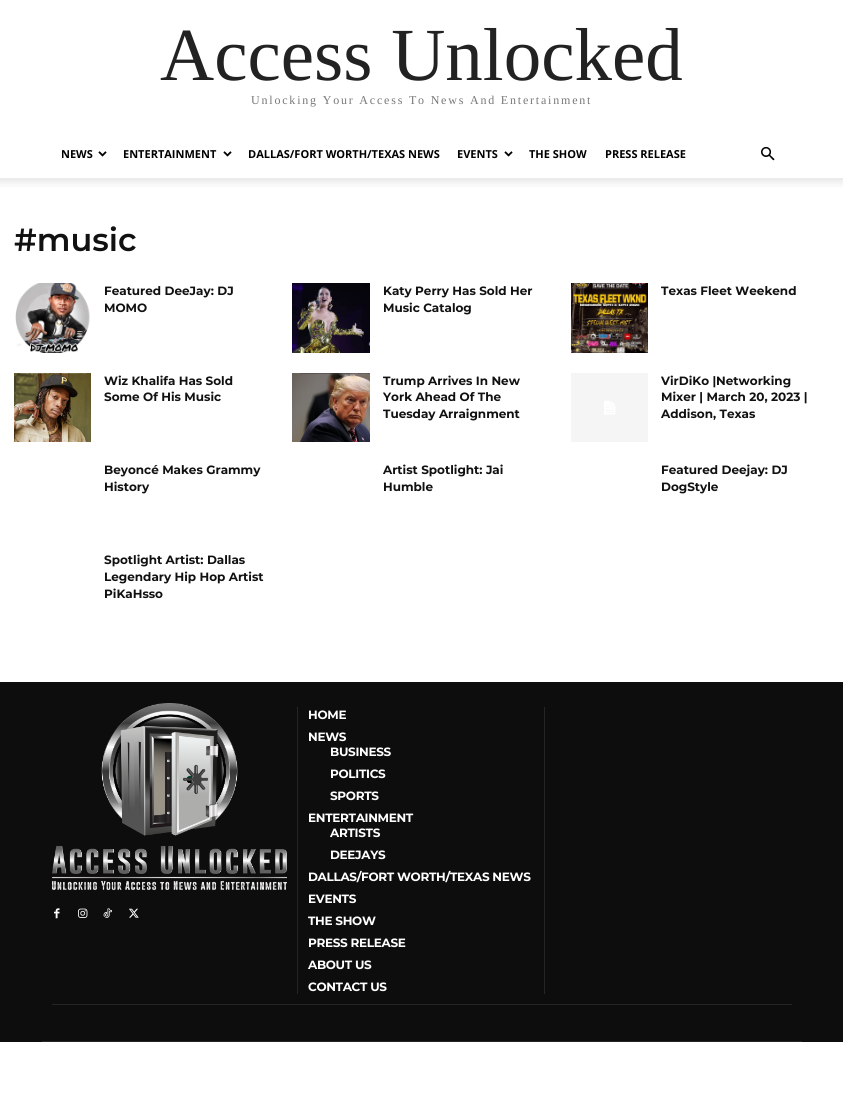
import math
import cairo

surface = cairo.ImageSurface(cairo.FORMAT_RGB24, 843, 1120)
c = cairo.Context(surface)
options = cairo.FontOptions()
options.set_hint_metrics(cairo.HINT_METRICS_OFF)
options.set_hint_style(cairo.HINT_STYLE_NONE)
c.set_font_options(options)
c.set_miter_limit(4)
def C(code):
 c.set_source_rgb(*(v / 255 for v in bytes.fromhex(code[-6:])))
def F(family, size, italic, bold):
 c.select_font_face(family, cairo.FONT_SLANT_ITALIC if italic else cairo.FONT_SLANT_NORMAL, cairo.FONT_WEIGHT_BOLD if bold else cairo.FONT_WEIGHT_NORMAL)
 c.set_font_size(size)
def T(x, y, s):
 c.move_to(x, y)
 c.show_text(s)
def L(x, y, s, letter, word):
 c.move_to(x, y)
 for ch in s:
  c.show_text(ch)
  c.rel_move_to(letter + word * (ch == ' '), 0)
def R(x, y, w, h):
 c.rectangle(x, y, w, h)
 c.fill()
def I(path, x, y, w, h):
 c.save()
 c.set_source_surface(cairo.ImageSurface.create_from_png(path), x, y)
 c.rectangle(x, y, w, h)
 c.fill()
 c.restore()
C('ffffff')
c.paint()
F('Liberation Serif',75,0,0)
C('222222')
T(160,80,'Access Unlocked')
F('Liberation Serif',12,0,0)
C('777777')
L(251,104,'Unlocking Your Access To News And Entertainment',1.8,0)
F('Open Sans',11,0,1)
C('000000')
T(61,158,'NEWS')
I('1.png',98,151,9,6)
T(123,158,'ENTERTAINMENT')
I('1.png',223,151,9,6)
T(248,158,'DALLAS/FORT WORTH/TEXAS NEWS')
T(457,158,'EVENTS')
I('1.png',504,151,9,6)
T(529,158,'THE SHOW')
T(605,158,'PRESS RELEASE')
I('2.png',761,146,14,15)
I('3.png',0,178,843,9)
F('Montserrat SemiBold',32,0,0)
C('111111')
T(14,251,'#music')
I('4.png',15,283,75,70)
F('Montserrat',12,0,1)
T(104,295,'Featured DeeJay: DJ')
T(104,312,'MOMO')
I('5.png',292,283,78,70)
T(383,295,'Katy Perry Has Sold Her')
T(383,312,'Music Catalog')
I('6.png',571,283,77,70)
T(661,295,'Texas Fleet Weekend')
I('7.png',14,373,77,69)
T(104,385,'Wiz Khalifa Has Sold')
T(104,401,'Some Of His Music')
I('8.png',292,373,78,69)
T(383,385,'Trump Arrives In New')
T(383,401,'York Ahead Of The')
T(383,418,'Tuesday Arraignment')
I('9.png',571,373,77,69)
T(661,385,'VirDiKo |Networking')
T(661,401,'Mixer | March 20, 2023 |')
T(661,418,'Addison, Texas')
T(104,474,'Beyoncé Makes Grammy')
T(104,491,'History')
T(383,474,'Artist Spotlight: Jai')
T(383,491,'Humble')
T(661,474,'Featured Deejay: DJ')
T(661,491,'DogStyle')
T(104,564,'Spotlight Artist: Dallas')
T(104,581,'Legendary Hip Hop Artist')
T(104,598,'PiKaHsso')
C('0d0d0d')
R(0,682,843,360)
C('252525')
R(52,1004,740,1)
R(297,707,1,287)
I('10.png',52,703,235,187)
I('11.png',54,908,6,11)
I('12.png',78,908,10,10)
I('13.png',103,908,9,10)
I('14.png',129,908,10,10)
R(544,707,1,287)
C('ffffff')
L(308,719,'HOME',-.3,0)
L(308,741,'NEWS',-.3,0)
L(330,756,'BUSINESS',-.3,0)
L(330,778,'POLITICS',-.3,0)
L(330,800,'SPORTS',-.3,0)
L(308,822,'ENTERTAINMENT',-.3,0)
L(330,837,'ARTISTS',-.3,0)
L(330,859,'DEEJAYS',-.3,0)
L(308,881,'DALLAS/FORT WORTH/TEXAS NEWS',-.3,0)
L(308,903,'EVENTS',-.3,0)
L(308,925,'THE SHOW',-.3,0)
L(308,947,'PRESS RELEASE',-.3,0)
L(308,969,'ABOUT US',-.3,0)
L(308,991,'CONTACT US',-.3,0)
C('252525')
R(42,1041,760,1)
surface.write_to_png('o.png')
